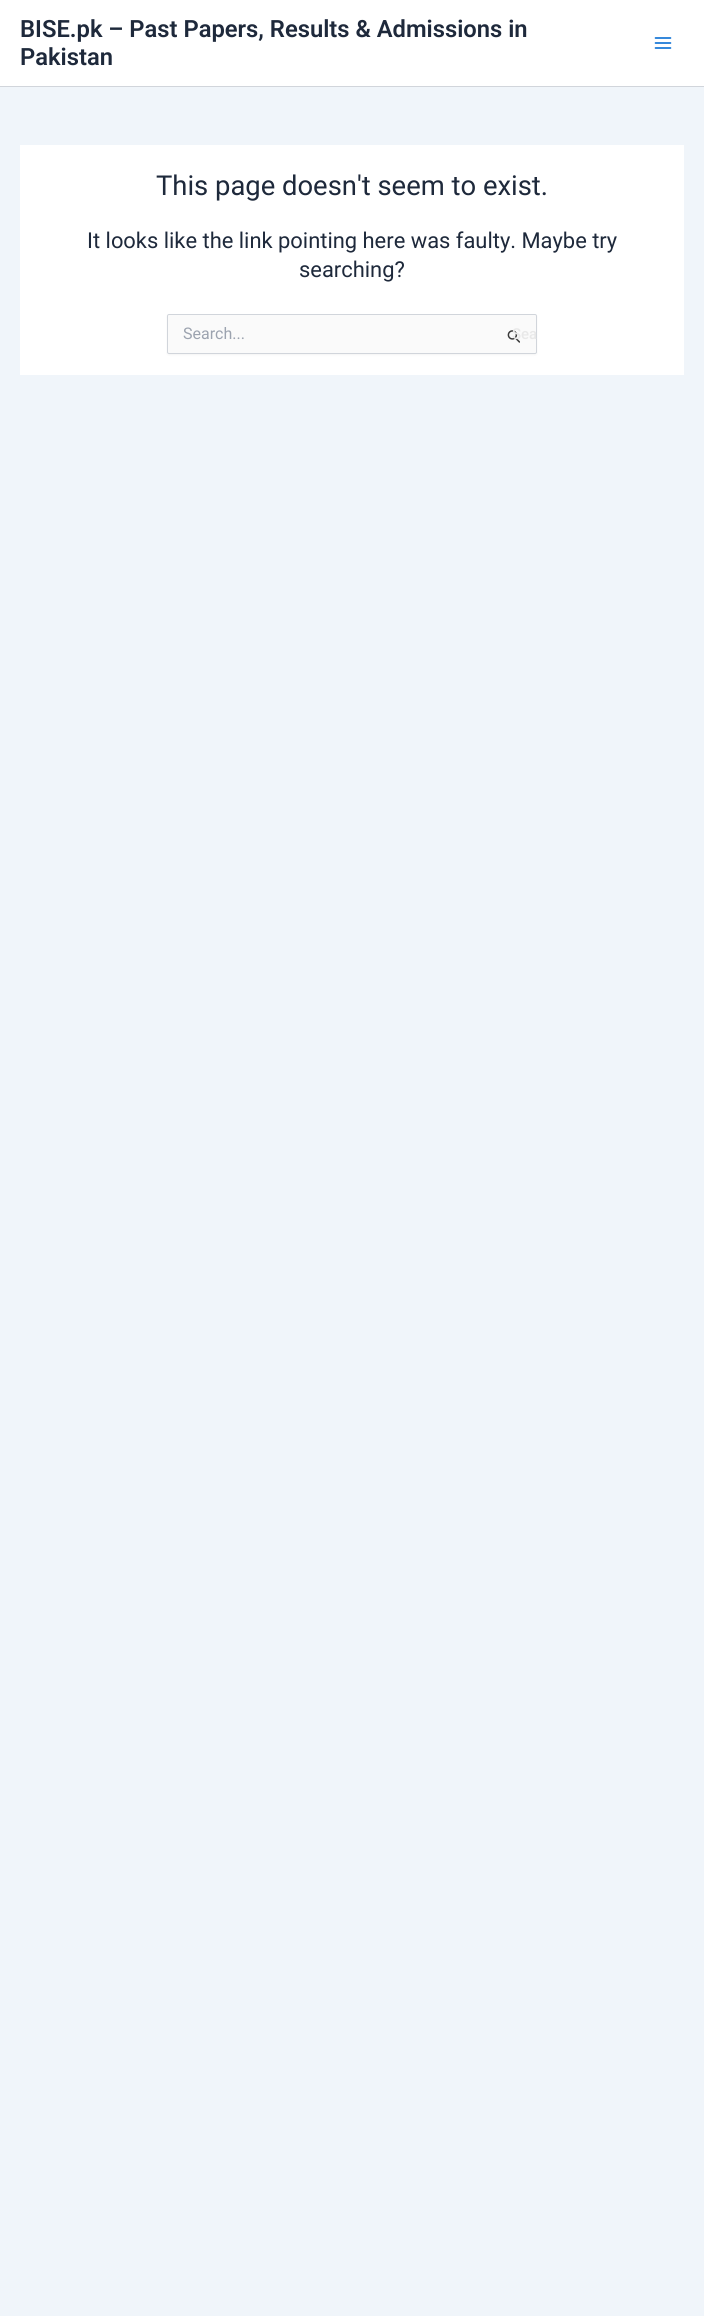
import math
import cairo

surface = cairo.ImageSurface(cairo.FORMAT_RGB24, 704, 2316)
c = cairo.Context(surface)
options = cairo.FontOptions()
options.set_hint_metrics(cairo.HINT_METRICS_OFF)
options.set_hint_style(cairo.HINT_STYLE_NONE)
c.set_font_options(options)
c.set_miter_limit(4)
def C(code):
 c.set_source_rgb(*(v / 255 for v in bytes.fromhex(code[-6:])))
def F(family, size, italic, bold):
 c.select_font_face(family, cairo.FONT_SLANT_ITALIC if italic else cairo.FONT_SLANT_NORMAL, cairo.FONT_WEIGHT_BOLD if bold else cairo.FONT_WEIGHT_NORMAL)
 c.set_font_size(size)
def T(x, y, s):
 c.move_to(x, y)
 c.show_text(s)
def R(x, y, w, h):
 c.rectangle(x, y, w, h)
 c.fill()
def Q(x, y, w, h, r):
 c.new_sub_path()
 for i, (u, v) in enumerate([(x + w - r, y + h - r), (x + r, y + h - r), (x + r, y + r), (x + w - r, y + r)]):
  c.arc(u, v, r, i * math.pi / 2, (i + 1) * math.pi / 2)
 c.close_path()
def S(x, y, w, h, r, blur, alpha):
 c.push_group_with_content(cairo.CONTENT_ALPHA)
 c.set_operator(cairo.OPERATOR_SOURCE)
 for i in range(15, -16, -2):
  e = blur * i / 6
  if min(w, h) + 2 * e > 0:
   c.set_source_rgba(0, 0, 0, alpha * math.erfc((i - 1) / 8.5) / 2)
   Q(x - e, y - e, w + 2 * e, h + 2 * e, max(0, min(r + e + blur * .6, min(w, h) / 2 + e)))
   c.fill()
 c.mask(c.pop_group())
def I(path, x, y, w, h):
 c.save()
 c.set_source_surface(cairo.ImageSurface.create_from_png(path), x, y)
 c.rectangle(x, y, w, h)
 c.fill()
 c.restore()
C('f0f5fa')
c.paint()
C('ffffff')
R(0,0,704,86)
C('d1d5db')
R(0,86,704,1)
F('Roboto SemiBold',23.75,0,0)
C('1e293b')
T(20,37,'BISE.pk – Past Papers, Results & Admissions in')
T(20,65,'Pakistan')
I('1.png',654,37,18,12)
C('ffffff')
R(20,145,664,230)
F('Roboto',27.4,0,0)
C('1e293b')
T(156,195,'This page doesn\'t seem to exist.')
F('Roboto',21.9,0,0)
T(87,248,'It looks like the link pointing here was faulty. Maybe try')
T(299,277,'searching?')
C('000000')
S(167,315,370,40,2,1,.05)
C('fafafa')
Q(167.5,314.5,369,39,1.5)
c.fill_preserve()
C('d1d5db')
c.set_line_width(1)
c.stroke()
F('Roboto',16,0,0)
C('9ca3af')
T(183,339,'Search...')
I('2.png',507,330,13,13)
F('Roboto Medium',15,0,0)
C('e8e8e8')
T(512,339,'Sea')
surface.write_to_png('o.png')
